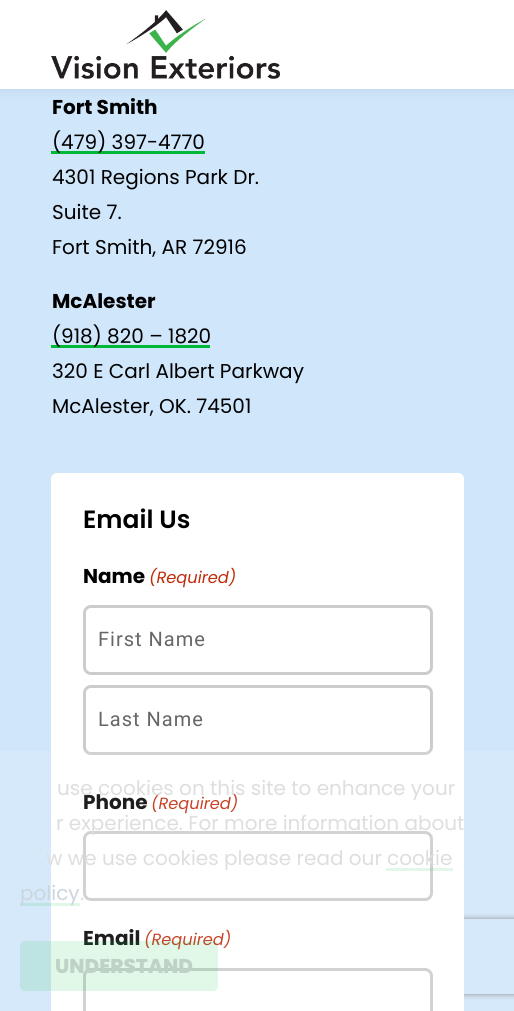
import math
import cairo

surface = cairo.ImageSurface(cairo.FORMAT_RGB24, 514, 1011)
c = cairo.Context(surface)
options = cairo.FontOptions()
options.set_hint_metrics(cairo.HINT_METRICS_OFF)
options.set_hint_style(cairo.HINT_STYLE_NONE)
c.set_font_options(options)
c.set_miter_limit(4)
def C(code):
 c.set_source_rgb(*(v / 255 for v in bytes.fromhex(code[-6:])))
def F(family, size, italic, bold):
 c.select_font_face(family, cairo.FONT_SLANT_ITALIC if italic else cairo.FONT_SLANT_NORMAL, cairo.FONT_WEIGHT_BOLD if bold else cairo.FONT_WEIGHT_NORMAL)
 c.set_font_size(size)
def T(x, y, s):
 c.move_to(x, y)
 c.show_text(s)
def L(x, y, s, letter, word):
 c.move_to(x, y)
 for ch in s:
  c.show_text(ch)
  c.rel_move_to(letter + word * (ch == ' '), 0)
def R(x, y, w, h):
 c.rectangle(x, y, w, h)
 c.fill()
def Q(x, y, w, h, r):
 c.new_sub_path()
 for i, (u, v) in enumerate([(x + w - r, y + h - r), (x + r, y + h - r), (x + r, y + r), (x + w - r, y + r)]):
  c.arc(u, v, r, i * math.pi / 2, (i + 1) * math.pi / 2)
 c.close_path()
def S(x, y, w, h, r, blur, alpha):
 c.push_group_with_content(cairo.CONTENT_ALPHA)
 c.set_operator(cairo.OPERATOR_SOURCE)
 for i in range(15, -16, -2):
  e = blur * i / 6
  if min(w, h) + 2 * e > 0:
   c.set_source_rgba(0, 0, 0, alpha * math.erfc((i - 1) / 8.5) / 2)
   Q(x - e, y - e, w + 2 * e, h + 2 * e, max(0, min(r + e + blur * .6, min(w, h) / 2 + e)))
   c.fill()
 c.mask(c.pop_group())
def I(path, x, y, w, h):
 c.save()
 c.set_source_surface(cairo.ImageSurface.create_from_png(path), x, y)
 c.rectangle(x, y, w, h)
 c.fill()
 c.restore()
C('d0e6fb')
c.paint()
C('000000')
S(0,0,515,89,0,6,.1)
C('ffffff')
R(0,0,514,89)
I('1.png',51,10,229,69)
F('Poppins',20,0,1)
C('000000')
T(52,114,'Fort Smith')
C('00b837')
R(51,151,154,3)
F('Poppins',20,0,0)
C('000000')
T(52,149,'(479) 397-4770')
T(52,184,'4301 Regions Park Dr.')
T(52,219,'Suite 7.')
T(52,254,'Fort Smith, AR 72916')
F('Poppins',20,0,1)
T(52,308,'McAlester')
C('00b837')
R(51,345,159,3)
F('Poppins',20,0,0)
C('000000')
T(52,343,'(918) 820 – 1820')
T(52,378,'320 E Carl Albert Parkway')
T(52,413,'McAlester, OK. 74501')
c.save()
c.set_fill_rule(cairo.FILL_RULE_EVEN_ODD)
c.new_path()
c.move_to(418,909)
c.line_to(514,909)
c.line_to(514,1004)
c.line_to(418,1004)
c.close_path()
c.move_to(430.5,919)
c.line_to(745.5,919)
c.curve_to(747,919,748,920,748,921.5)
c.line_to(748,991.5)
c.curve_to(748,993,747,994,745.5,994)
c.line_to(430.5,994)
c.curve_to(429,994,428,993,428,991.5)
c.line_to(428,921.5)
c.curve_to(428,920,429,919,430.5,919)
c.close_path()
c.clip()
C('808080')
S(428,919,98,75,2.5,3,1)
c.restore()
C('ffffff')
Q(51,473,413,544,6)
c.fill()
F('Poppins SemiBold',25,0,0)
C('000000')
T(83,528,'Email Us')
F('Poppins',20,0,1)
T(83,583,'Name')
F('Poppins',16.25,1,0)
C('c02b0a')
T(149,583,'(Required)')
Q(84.5,606.5,347,67,6.5)
C('cccccc')
c.set_line_width(3)
c.stroke()
F('Roboto',20,0,0)
C('666666')
L(98,646,'First Name',1,0)
Q(84.5,686.5,347,67,6.5)
C('cccccc')
c.stroke()
C('666666')
L(98,726,'Last Name',1,0)
F('Poppins',20,0,1)
C('000000')
T(83,809,'Phone')
F('Poppins',16.25,1,0)
C('c02b0a')
T(151,809,'(Required)')
Q(84.5,832.5,347,67,6.5)
C('cccccc')
c.stroke()
F('Poppins',20,0,1)
C('000000')
T(83,945,'Email')
F('Poppins',16.25,1,0)
C('c02b0a')
T(144,945,'(Required)')
Q(84.5,969.5,347,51,6.5)
C('cccccc')
c.stroke()
c.set_source_rgba(1,1,1,0.12)
R(0,751,514,260)
F('Poppins',20,0,0)
C('dddee0')
T(57,795,'use cookies on this site to enhance your')
T(56,830,'r experience. For more information about')
T(46,865,'w we use cookies please read our')
T(387,865,'cookie')
c.set_source_rgba(0,0.722,0.216,0.12)
R(386,868,67,3)
R(20,903,60,3)
C('cbd5de')
T(20,900,'policy')
C('dddee0')
T(80,900,'.')
c.set_source_rgba(0,0.722,0.216,0.12)
Q(20,941,198,50,5)
c.fill()
F('Poppins ExtraBold',20,0,0)
C('bed3c6')
T(55,973,'UNDERSTAND')
surface.write_to_png('o.png')
